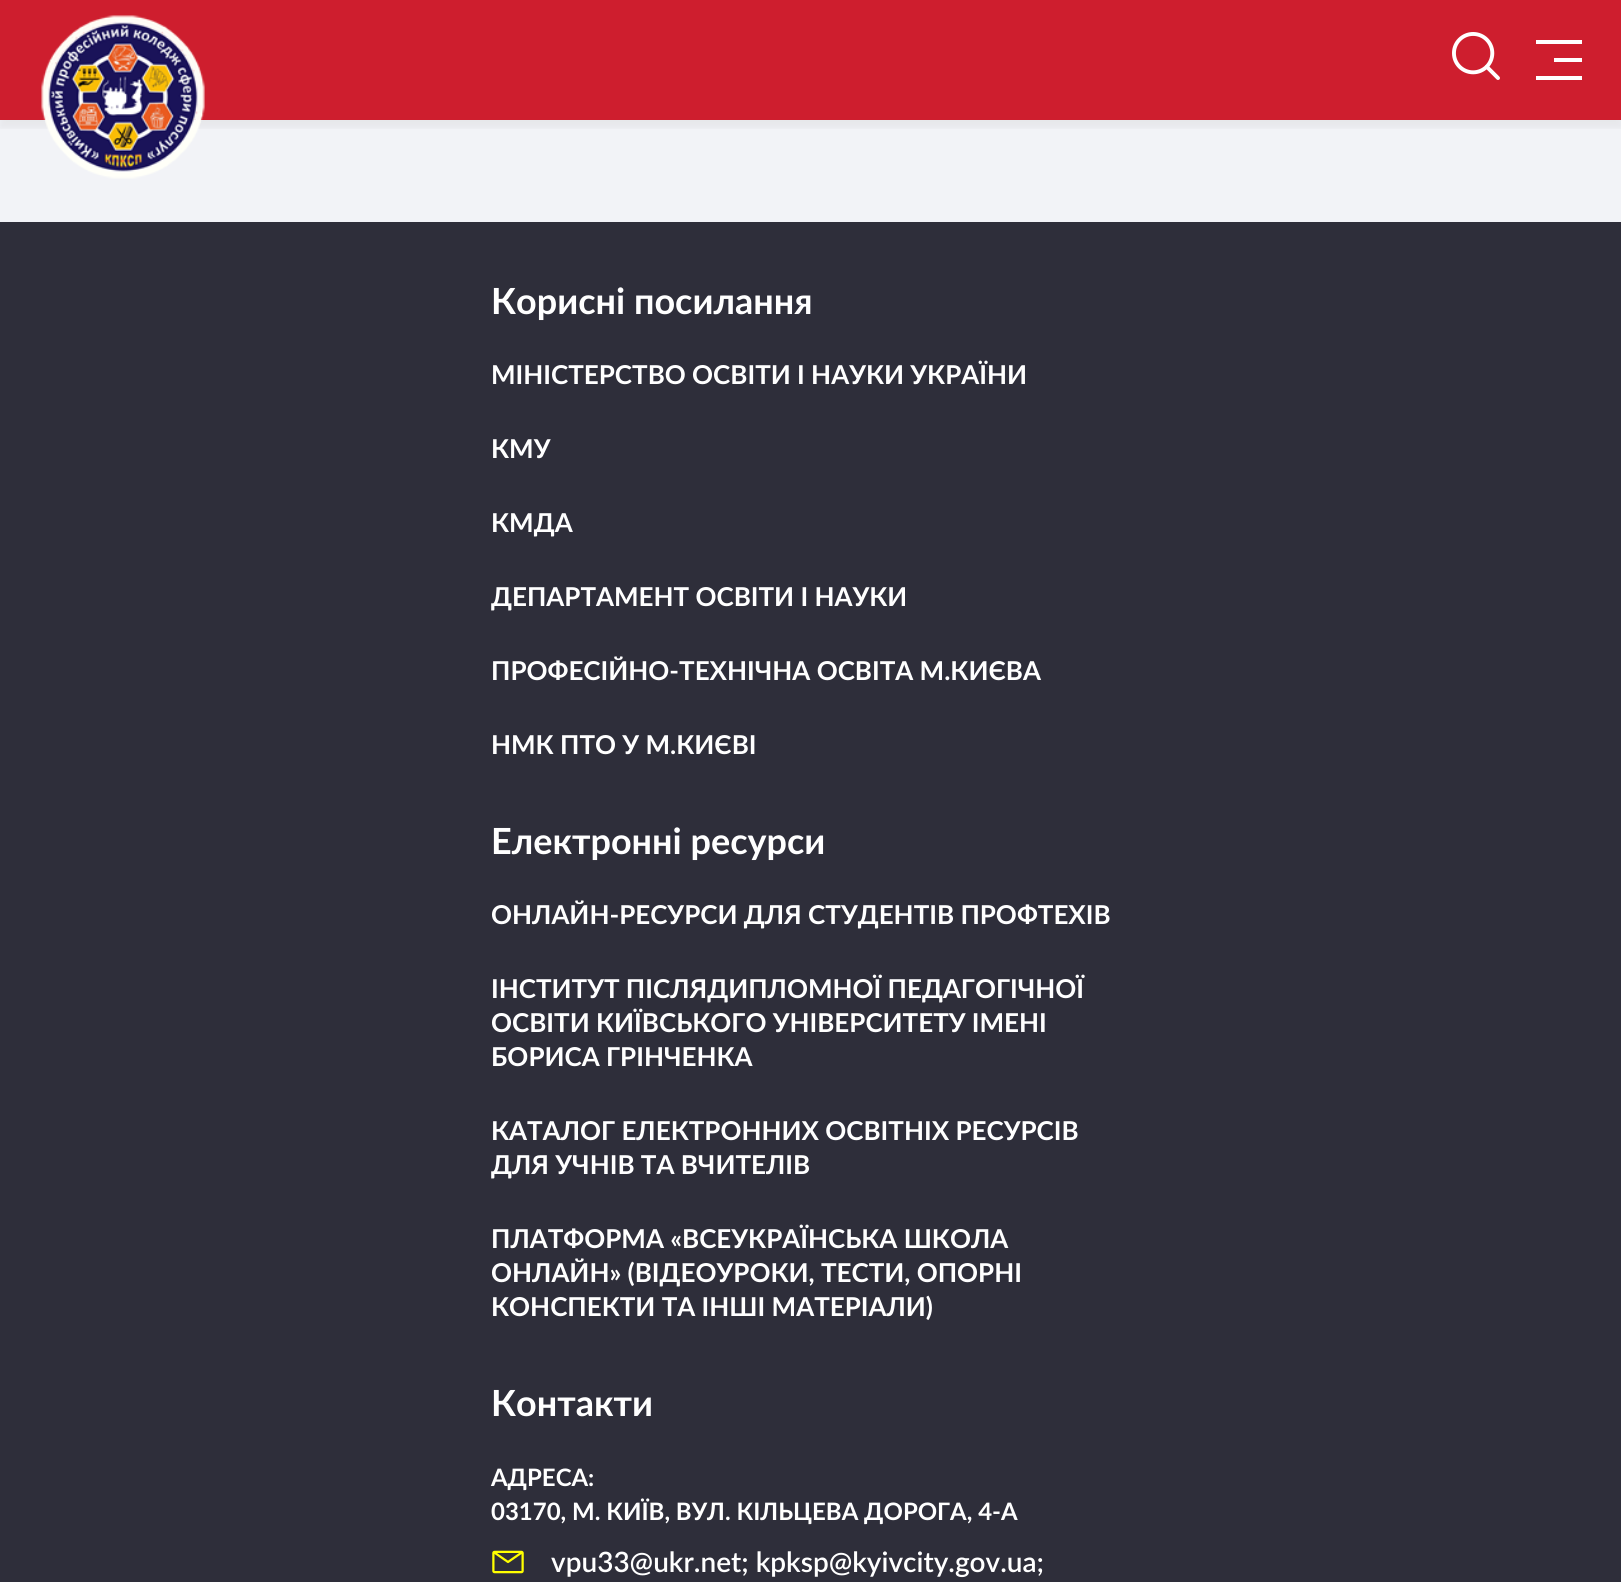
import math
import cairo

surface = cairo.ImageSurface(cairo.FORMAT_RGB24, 1621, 1582)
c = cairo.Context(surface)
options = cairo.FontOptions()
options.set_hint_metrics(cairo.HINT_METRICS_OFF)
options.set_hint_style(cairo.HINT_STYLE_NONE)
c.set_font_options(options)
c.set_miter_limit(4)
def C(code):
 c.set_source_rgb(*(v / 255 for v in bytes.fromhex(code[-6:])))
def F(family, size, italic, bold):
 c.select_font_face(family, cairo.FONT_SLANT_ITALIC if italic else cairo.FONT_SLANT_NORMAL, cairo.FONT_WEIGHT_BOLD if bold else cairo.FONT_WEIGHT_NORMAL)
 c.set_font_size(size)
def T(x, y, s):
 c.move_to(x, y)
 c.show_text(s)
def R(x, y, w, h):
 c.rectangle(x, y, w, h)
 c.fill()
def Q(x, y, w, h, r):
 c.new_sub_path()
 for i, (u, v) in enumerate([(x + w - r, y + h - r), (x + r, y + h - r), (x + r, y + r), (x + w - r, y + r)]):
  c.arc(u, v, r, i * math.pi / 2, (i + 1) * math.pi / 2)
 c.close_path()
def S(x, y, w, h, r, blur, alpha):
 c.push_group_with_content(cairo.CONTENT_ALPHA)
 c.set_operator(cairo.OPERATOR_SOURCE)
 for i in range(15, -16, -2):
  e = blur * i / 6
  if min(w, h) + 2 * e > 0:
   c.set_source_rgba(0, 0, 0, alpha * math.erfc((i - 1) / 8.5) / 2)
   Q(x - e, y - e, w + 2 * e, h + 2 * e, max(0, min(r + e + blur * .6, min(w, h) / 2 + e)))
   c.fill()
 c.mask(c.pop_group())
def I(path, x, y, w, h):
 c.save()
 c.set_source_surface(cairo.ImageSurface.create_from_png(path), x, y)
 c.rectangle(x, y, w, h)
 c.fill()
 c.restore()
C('f2f3f7')
c.paint()
C('ce1e2e')
R(0,0,1621,120)
c.save()
c.rectangle(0,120,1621,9)
c.clip()
C('000000')
S(0,8,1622,120,0,4,.05)
c.restore()
I('1.png',41,15,164,164)
I('2.png',1452,32,48,48)
C('ffffff')
R(1536,40,46,4)
R(1554,58,28,4)
R(1536,76,46,4)
C('2e2e3a')
R(0,222,1621,1360)
F('Lato',36,0,1)
C('ffffff')
T(491,314,'Корисні посилання')
F('Lato',26,0,1)
T(491,384,'МІНІСТЕРСТВО ОСВІТИ І НАУКИ УКРАЇНИ')
T(491,458,'КМУ')
T(491,532,'КМДА')
T(491,606,'ДЕПАРТАМЕНТ ОСВІТИ І НАУКИ')
T(491,680,'ПРОФЕСІЙНО-ТЕХНІЧНА ОСВІТА М.КИЄВА')
T(491,754,'НМК ПТО У М.КИЄВІ')
F('Lato',36,0,1)
T(491,854,'Електронні ресурси')
F('Lato',26,0,1)
T(491,924,'ОНЛАЙН-РЕСУРСИ ДЛЯ СТУДЕНТІВ ПРОФТЕХІВ')
T(491,998,'ІНСТИТУТ ПІСЛЯДИПЛОМНОЇ ПЕДАГОГІЧНОЇ')
T(491,1032,'ОСВІТИ КИЇВСЬКОГО УНІВЕРСИТЕТУ ІМЕНІ')
T(491,1066,'БОРИСА ГРІНЧЕНКА')
T(491,1140,'КАТАЛОГ ЕЛЕКТРОННИХ ОСВІТНІХ РЕСУРСІВ')
T(491,1174,'ДЛЯ УЧНІВ ТА ВЧИТЕЛІВ')
T(491,1248,'ПЛАТФОРМА «ВСЕУКРАЇНСЬКА ШКОЛА')
T(491,1282,'ОНЛАЙН» (ВІДЕОУРОКИ, ТЕСТИ, ОПОРНІ')
T(491,1316,'КОНСПЕКТИ ТА ІНШІ МАТЕРІАЛИ)')
F('Lato',36,0,1)
T(491,1416,'Контакти')
F('Lato',24,0,1)
T(491,1486,'АДРЕСА:')
T(491,1520,'03170, М. КИЇВ, ВУЛ. КІЛЬЦЕВА ДОРОГА, 4-А')
I('3.png',492,1550,32,24)
F('Lato SemiBold',28,0,0)
T(551,1572,'vpu33@ukr.net; kpksp@kyivcity.gov.ua;')
surface.write_to_png('o.png')
